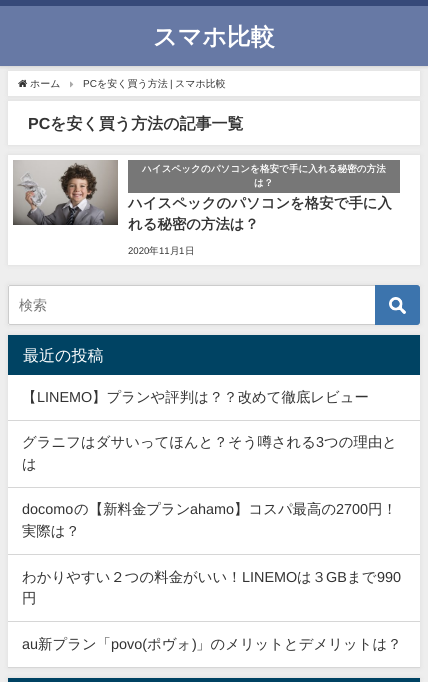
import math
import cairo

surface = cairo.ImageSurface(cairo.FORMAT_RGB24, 428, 682)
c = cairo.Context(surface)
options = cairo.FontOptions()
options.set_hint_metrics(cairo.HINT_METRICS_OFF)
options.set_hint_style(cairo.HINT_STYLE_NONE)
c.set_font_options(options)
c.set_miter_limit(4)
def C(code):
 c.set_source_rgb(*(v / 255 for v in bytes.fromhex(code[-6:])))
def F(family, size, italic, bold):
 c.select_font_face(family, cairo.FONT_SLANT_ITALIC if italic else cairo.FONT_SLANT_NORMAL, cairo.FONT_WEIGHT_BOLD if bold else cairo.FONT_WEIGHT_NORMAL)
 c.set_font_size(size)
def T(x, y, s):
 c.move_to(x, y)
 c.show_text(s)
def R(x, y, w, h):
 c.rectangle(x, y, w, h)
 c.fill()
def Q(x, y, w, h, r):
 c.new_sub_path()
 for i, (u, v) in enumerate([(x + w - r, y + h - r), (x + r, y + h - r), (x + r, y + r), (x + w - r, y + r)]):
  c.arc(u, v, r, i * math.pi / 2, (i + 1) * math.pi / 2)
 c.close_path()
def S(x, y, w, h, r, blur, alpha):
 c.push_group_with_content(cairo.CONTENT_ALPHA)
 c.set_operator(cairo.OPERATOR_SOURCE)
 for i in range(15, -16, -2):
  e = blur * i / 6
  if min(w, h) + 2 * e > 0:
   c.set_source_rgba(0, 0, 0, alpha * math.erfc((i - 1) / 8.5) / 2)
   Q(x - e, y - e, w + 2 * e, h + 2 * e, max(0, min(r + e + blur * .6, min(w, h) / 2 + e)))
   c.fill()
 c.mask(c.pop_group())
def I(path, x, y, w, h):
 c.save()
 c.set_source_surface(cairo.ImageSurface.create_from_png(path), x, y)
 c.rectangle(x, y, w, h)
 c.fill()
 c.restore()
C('eeeeee')
c.paint()
C('969696')
S(8,71,412,25,0,2.5,.2)
C('ffffff')
R(8,71,412,25)
C('000000')
S(0,0,428,66,0,2,.2)
C('6779a5')
R(0,6,428,60)
C('364979')
R(0,0,428,6)
F('WenQuanYi Zen Hei',24,0,1)
C('ffffff')
T(153,45,'スマホ比較')
I('1.png',18,79,10,8)
F('WenQuanYi Zen Hei Medium',10,0,0)
C('333333')
T(30,87,'ホーム')
I('2.png',70,81,4,7)
F('Liberation Sans',10,0,0)
T(83,87,'PC')
F('WenQuanYi Zen Hei Medium',10,0,0)
T(97,87,'を安く買う方法')
F('Liberation Sans',10,0,0)
T(170,87,'|')
F('WenQuanYi Zen Hei Medium',10,0,0)
T(175,87,'スマホ比較')
C('969696')
S(8,101,412,44,0,2.5,.2)
C('ffffff')
R(8,101,412,44)
F('Liberation Sans',16,0,1)
C('333333')
T(28,129,'PC')
F('WenQuanYi Zen Hei',16,0,1)
T(50,129,'を安く買う方法の記事一覧')
C('969696')
S(8,155,412,110,0,2.5,.2)
C('ffffff')
R(8,155,412,110)
I('3.png',13,160,105,65)
C('777777')
R(128,160,272,33)
F('WenQuanYi Zen Hei',9.6,0,1)
C('ffffff')
T(142,172,'ハイスペックのパソコンを格安で手に入れる秘密の方法')
T(254,186,'は？')
F('WenQuanYi Zen Hei',14.4,0,1)
C('333333')
T(128,208,'ハイスペックのパソコンを格安で手に入')
T(128,229,'れる秘密の方法は？')
F('Liberation Sans',9.6,0,0)
T(128,254,'2020')
F('WenQuanYi Zen Hei Medium',9.6,0,0)
T(149,254,'年')
F('Liberation Sans',9.6,0,0)
T(159,254,'11')
F('WenQuanYi Zen Hei Medium',9.6,0,0)
T(170,254,'月')
F('Liberation Sans',9.6,0,0)
T(179,254,'1')
F('WenQuanYi Zen Hei Medium',9.6,0,0)
T(185,254,'日')
C('969696')
S(8,285,412,40,0,2.5,.2)
C('ffffff')
R(8,285,412,40)
Q(8.5,285.5,411,39,1.5)
C('cccccc')
c.set_line_width(1)
c.stroke()
F('WenQuanYi Zen Hei Medium',14,0,0)
C('757575')
T(19,310,'検索')
C('3c74ad')
c.new_path()
c.move_to(375,285)
c.line_to(417,285)
c.curve_to(418.5,285,420,286.5,420,288)
c.line_to(420,322)
c.curve_to(420,323.5,418.5,325,417,325)
c.line_to(375,325)
c.close_path()
c.fill()
I('4.png',389,297,17,17)
C('969696')
S(8,335,412,333,0,2.5,.2)
C('ffffff')
R(8,375,412,292)
C('004363')
R(8,335,412,40)
F('WenQuanYi Zen Hei Medium',16,0,0)
C('ffffff')
T(23,361,'最近の投稿')
C('d6d6d6')
R(8,420,412,1)
F('WenQuanYi Zen Hei Medium',14.4,0,0)
C('333333')
T(22,402,'【')
F('Liberation Sans',14.4,0,0)
T(37,402,'LINEMO')
F('WenQuanYi Zen Hei Medium',14.4,0,0)
T(92,402,'】プランや評判は？？改めて徹底レビュー')
C('d6d6d6')
R(8,487,412,1)
C('333333')
T(22,447,'グラニフはダサいってほんと？そう噂される')
F('Liberation Sans',14.4,0,0)
T(316,447,'3')
F('WenQuanYi Zen Hei Medium',14.4,0,0)
T(324,447,'つの理由と')
T(22,469,'は')
C('d6d6d6')
R(8,554,412,1)
F('Liberation Sans',14.4,0,0)
C('333333')
T(22,514,'docomo')
F('WenQuanYi Zen Hei Medium',14.4,0,0)
T(74,514,'の【新料金プラン')
F('Liberation Sans',14.4,0,0)
T(190,514,'ahamo')
F('WenQuanYi Zen Hei Medium',14.4,0,0)
T(234,514,'】コスパ最高の')
F('Liberation Sans',14.4,0,0)
T(336,514,'2700')
F('WenQuanYi Zen Hei Medium',14.4,0,0)
T(368,514,'円！')
T(22,536,'実際は？')
C('d6d6d6')
R(8,621,412,1)
C('333333')
T(22,582,'わかりやすい２つの料金がいい！')
F('Liberation Sans',14.4,0,0)
T(242,582,'LINEMO')
F('WenQuanYi Zen Hei Medium',14.4,0,0)
T(297,582,'は３')
F('Liberation Sans',14.4,0,0)
T(326,582,'GB')
F('WenQuanYi Zen Hei Medium',14.4,0,0)
T(347,582,'まで')
F('Liberation Sans',14.4,0,0)
T(377,582,'990')
F('WenQuanYi Zen Hei Medium',14.4,0,0)
T(22,603,'円')
C('d6d6d6')
R(8,667,412,1)
F('Liberation Sans',14.4,0,0)
C('333333')
T(22,649,'au')
F('WenQuanYi Zen Hei Medium',14.4,0,0)
T(38,649,'新プラン「')
F('Liberation Sans',14.4,0,0)
T(111,649,'povo(')
F('WenQuanYi Zen Hei Medium',14.4,0,0)
T(147,649,'ポヴォ')
F('Liberation Sans',14.4,0,0)
T(192,649,')')
F('WenQuanYi Zen Hei Medium',14.4,0,0)
T(196,649,'」のメリットとデメリットは？')
C('969696')
S(8,678,412,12,0,2.5,.2)
C('004363')
R(8,678,412,4)
surface.write_to_png('o.png')
